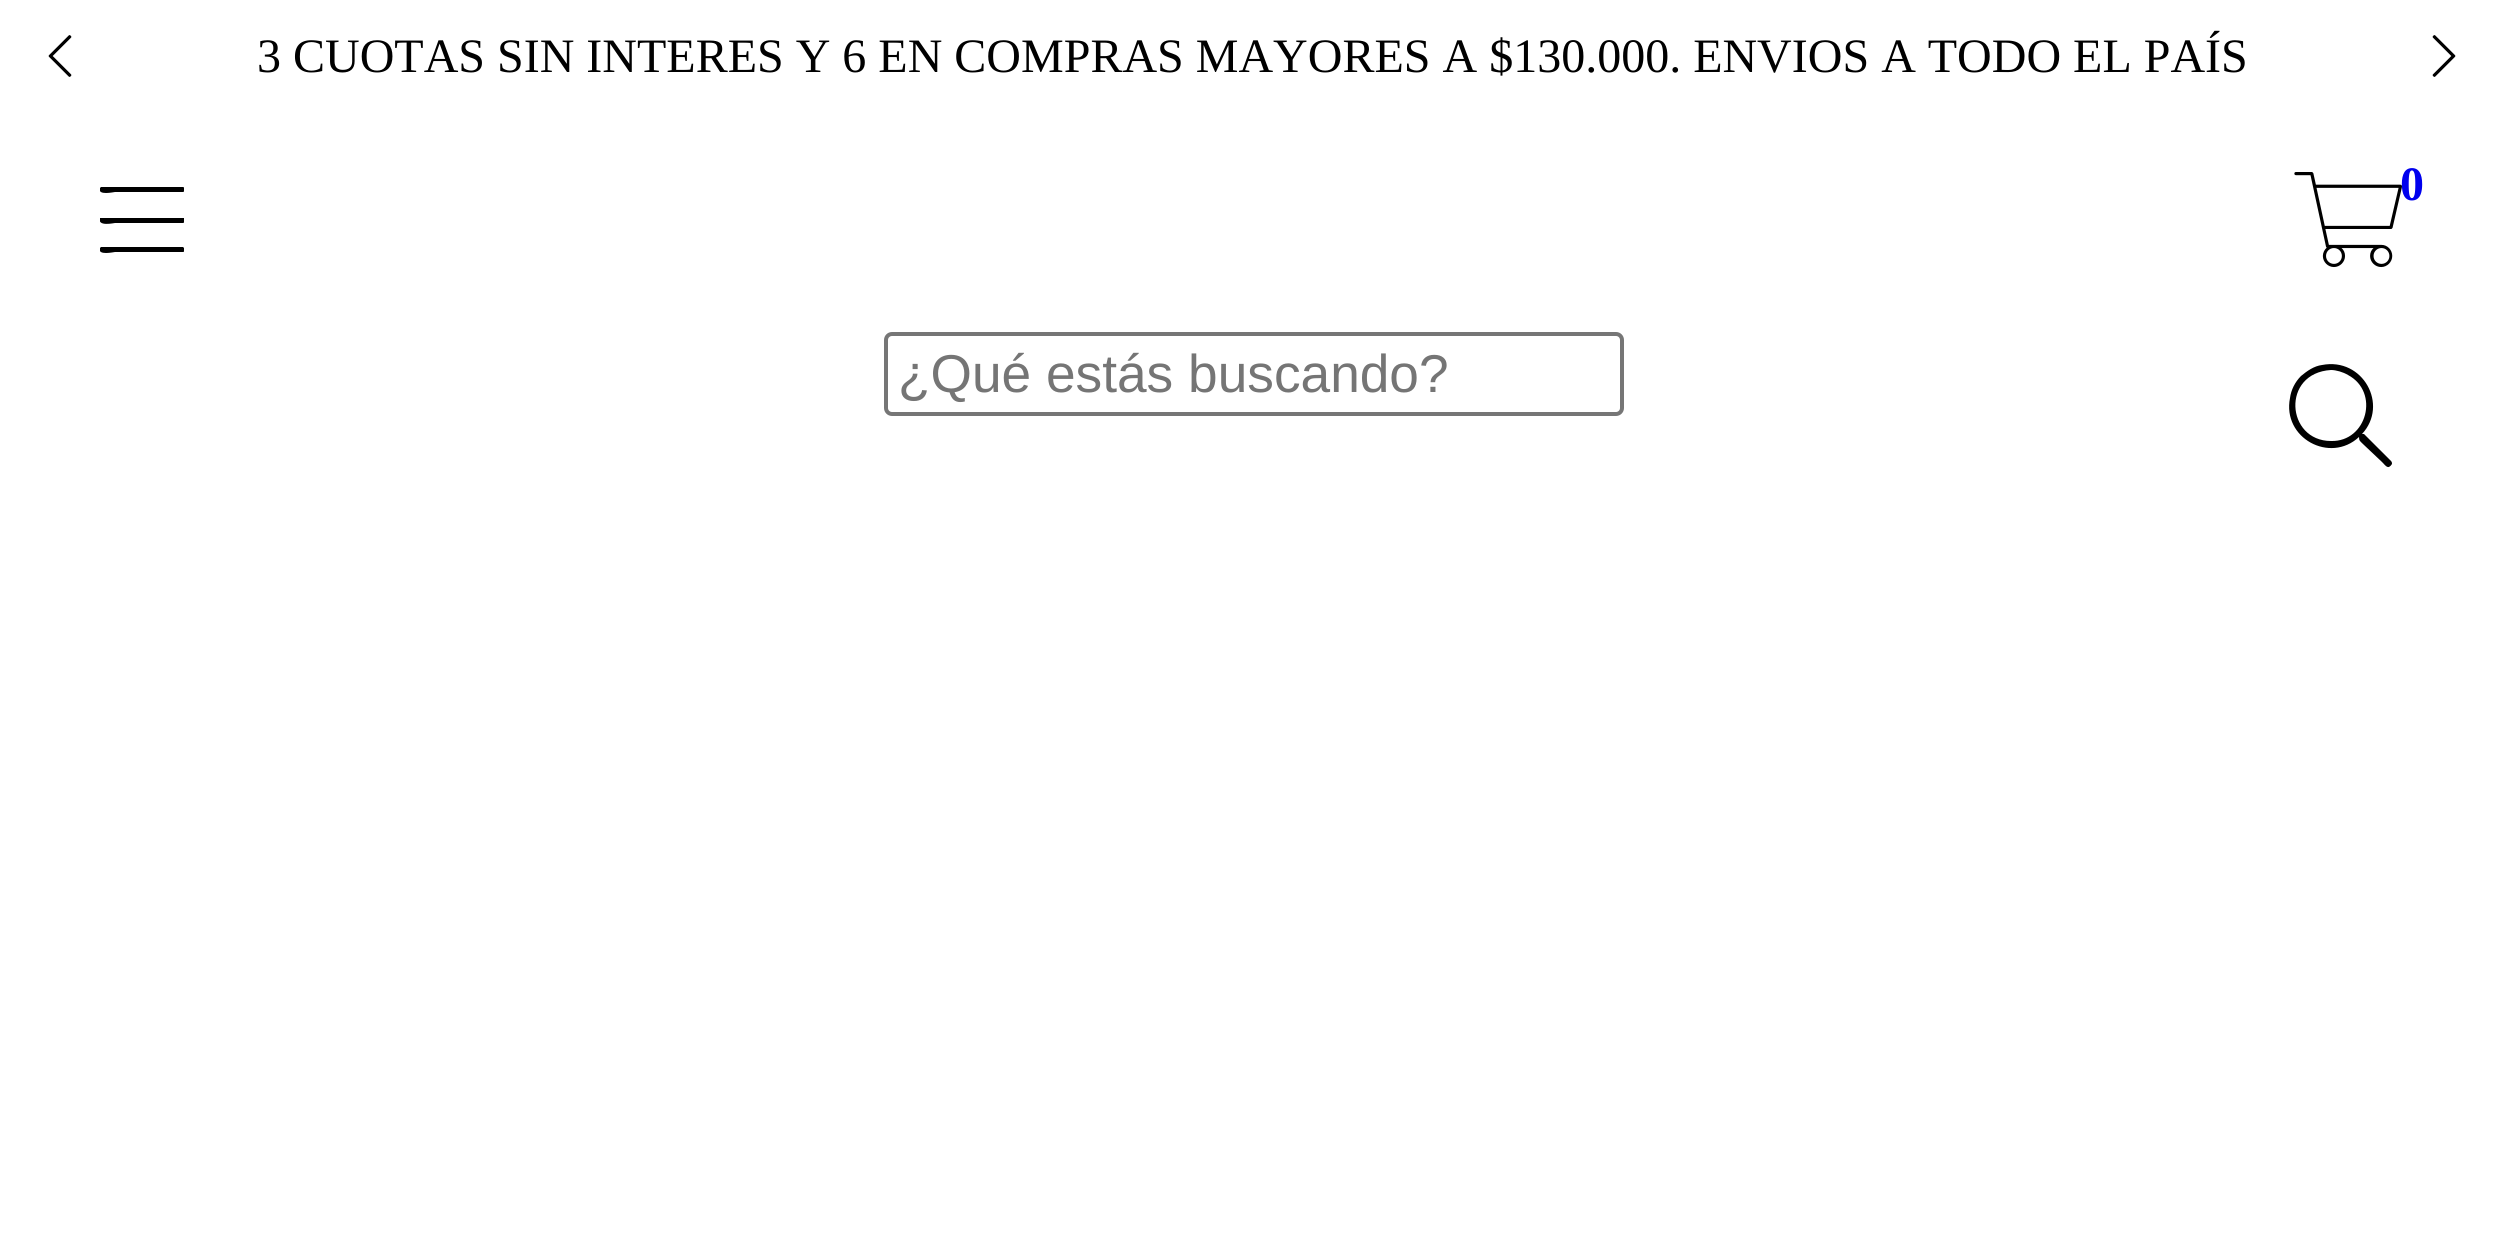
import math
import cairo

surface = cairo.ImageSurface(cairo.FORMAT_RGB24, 2501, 1242)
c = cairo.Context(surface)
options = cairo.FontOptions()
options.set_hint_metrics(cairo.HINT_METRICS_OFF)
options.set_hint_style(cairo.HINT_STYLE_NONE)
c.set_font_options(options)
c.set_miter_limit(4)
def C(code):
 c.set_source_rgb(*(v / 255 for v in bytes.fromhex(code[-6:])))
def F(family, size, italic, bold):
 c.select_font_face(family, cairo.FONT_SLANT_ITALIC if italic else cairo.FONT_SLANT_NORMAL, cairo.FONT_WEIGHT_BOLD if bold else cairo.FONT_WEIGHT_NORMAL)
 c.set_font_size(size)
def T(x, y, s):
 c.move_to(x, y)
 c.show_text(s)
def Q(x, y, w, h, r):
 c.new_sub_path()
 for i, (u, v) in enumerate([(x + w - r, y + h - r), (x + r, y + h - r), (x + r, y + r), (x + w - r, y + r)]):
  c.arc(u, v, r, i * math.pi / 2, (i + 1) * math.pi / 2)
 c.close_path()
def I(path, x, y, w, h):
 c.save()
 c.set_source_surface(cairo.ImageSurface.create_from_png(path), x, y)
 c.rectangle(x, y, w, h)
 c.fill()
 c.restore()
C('ffffff')
c.paint()
I('1.png',48,35,24,42)
F('Liberation Serif',48,0,0)
C('000000')
T(257,72,'3 CUOTAS SIN INTERES Y 6 EN COMPRAS MAYORES A $130.000. ENVIOS A TODO EL PAÍS')
I('2.png',2432,35,24,42)
c.save()
c.rectangle(100,172,84,96)
c.clip()
c.new_path()
c.move_to(183,192)
c.line_to(115,192)
c.curve_to(114,192,97,196,100,188)
c.line_to(101,187)
c.line_to(183,187)
c.curve_to(185,187,185,192,183,192)
c.close_path()
c.move_to(183,223)
c.line_to(115,223)
c.curve_to(114,223,97,227,100,218)
c.line_to(101,218)
c.line_to(115,218)
c.line_to(183,218)
c.line_to(184,218)
c.curve_to(184,219,185,223,183,223)
c.close_path()
c.move_to(183,252)
c.line_to(115,252)
c.curve_to(114,252,97,256,100,248)
c.line_to(101,247)
c.line_to(115,247)
c.line_to(183,247)
c.line_to(184,248)
c.curve_to(184,249,185,252,183,252)
c.close_path()
c.fill()
c.restore()
I('3.png',2294,172,108,96)
F('Liberation Serif',48,0,1)
C('0000ee')
T(2400,200,'0')
Q(886,334,736,80,6)
C('767676')
c.set_line_width(4)
c.stroke()
F('Liberation Sans',53.25,0,0)
C('757575')
T(898,392,'¿Qué estás buscando?')
C('000000')
c.new_path()
c.move_to(2391,461)
c.line_to(2365,435)
c.line_to(2364,434)
c.line_to(2362,434)
c.curve_to(2389,405,2363,357,2322,365)
c.curve_to(2314,366,2307,371,2301,376)
c.curve_to(2295,382,2291,390,2290,398)
c.curve_to(2282,438,2330,464,2359,437)
c.curve_to(2359,441,2360,441,2364,445)
c.line_to(2382,462)
c.curve_to(2386,466,2388,470,2392,464)
c.curve_to(2392,463,2392,462,2391,461)
c.close_path()
c.move_to(2331,441)
c.curve_to(2286,441,2281,373,2331,370)
c.curve_to(2336,370,2343,372,2348,375)
c.curve_to(2380,392,2367,442,2331,441)
c.close_path()
c.fill()
surface.write_to_png('o.png')
